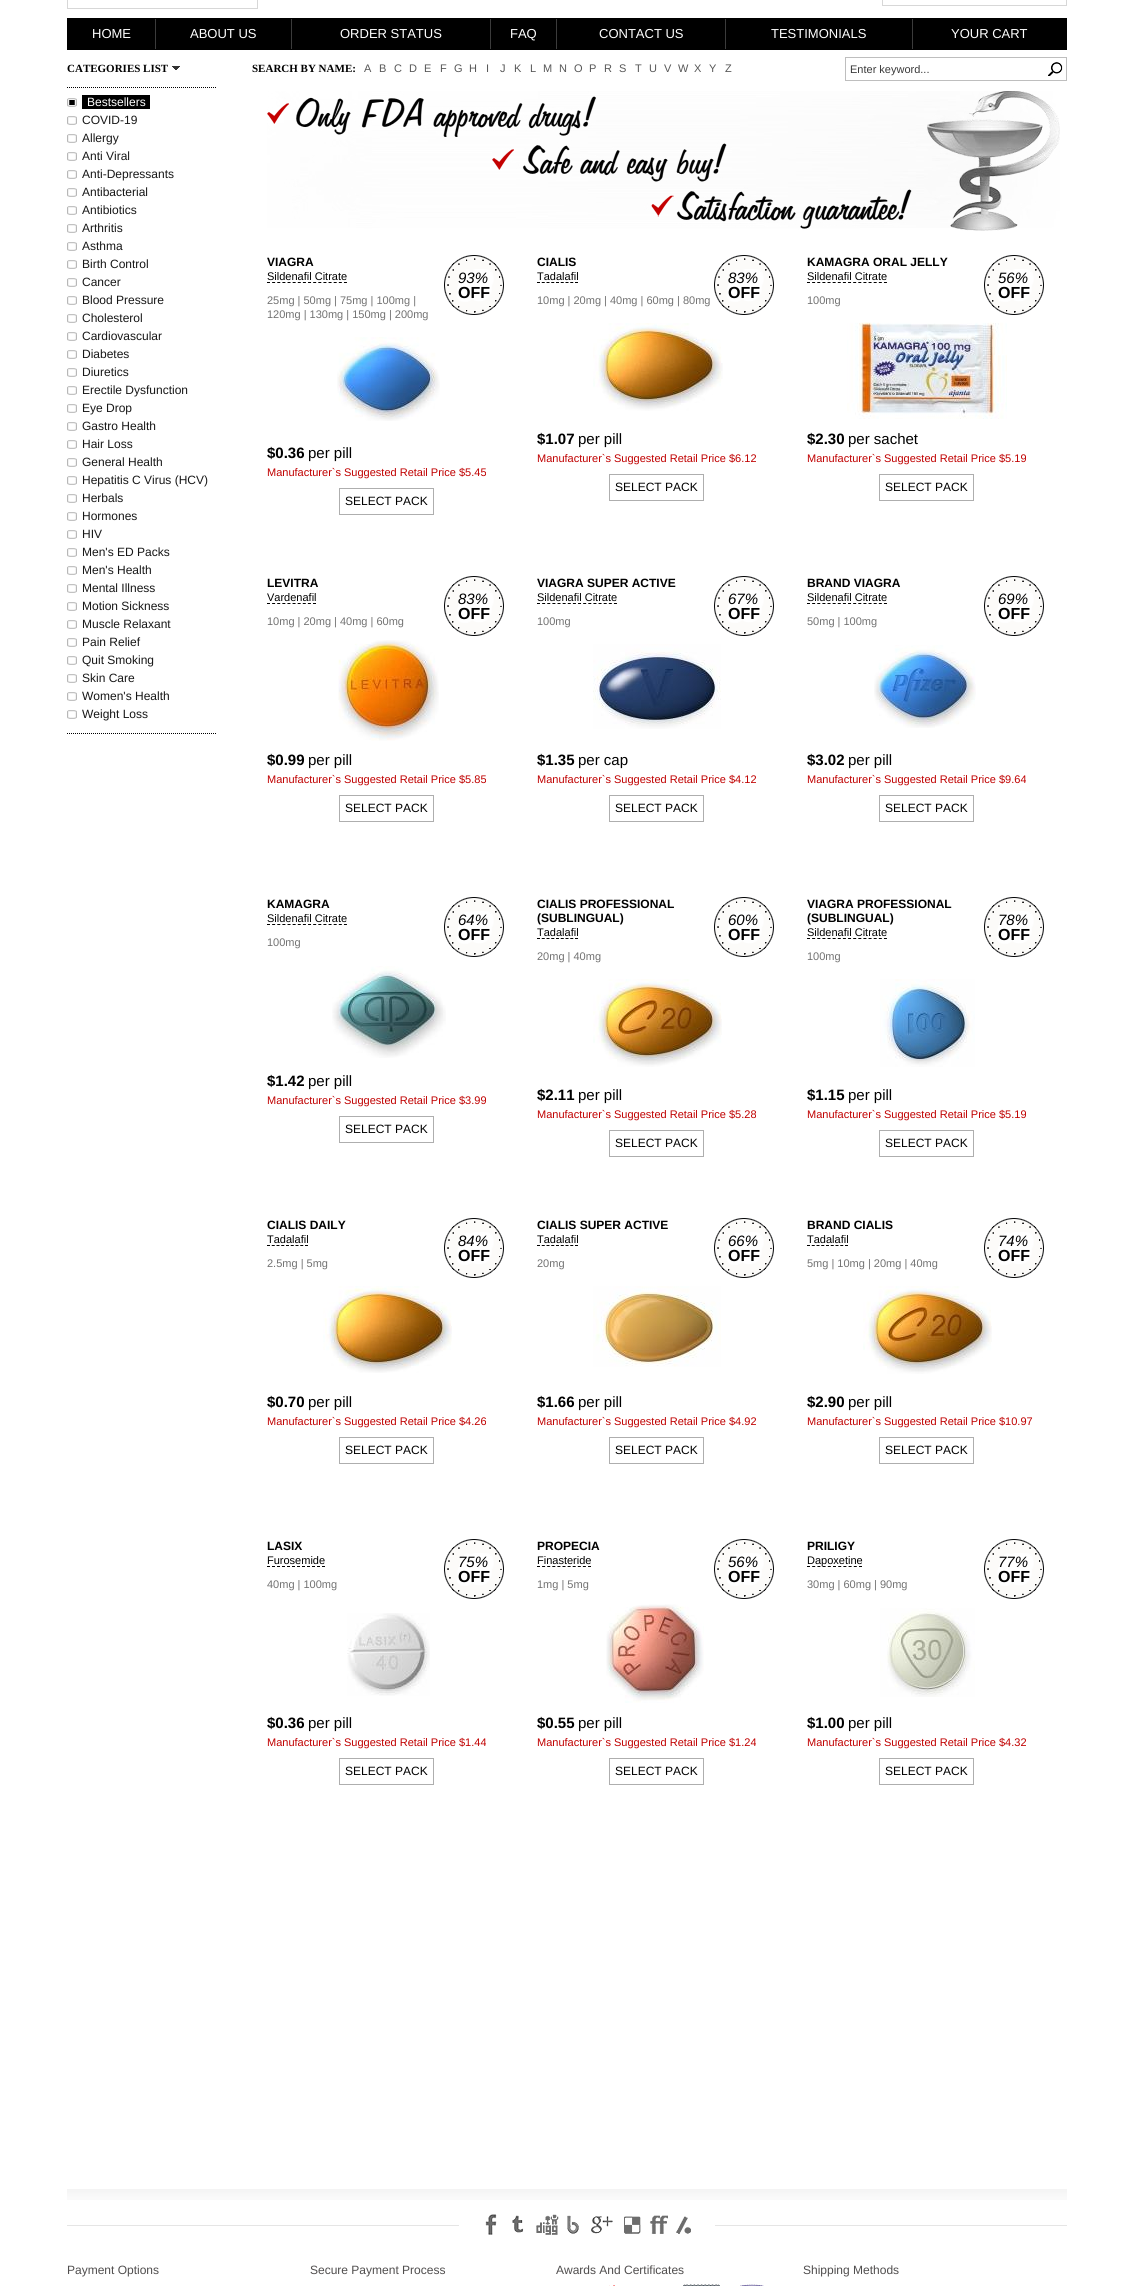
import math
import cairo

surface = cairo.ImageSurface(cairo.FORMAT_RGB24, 1133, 2286)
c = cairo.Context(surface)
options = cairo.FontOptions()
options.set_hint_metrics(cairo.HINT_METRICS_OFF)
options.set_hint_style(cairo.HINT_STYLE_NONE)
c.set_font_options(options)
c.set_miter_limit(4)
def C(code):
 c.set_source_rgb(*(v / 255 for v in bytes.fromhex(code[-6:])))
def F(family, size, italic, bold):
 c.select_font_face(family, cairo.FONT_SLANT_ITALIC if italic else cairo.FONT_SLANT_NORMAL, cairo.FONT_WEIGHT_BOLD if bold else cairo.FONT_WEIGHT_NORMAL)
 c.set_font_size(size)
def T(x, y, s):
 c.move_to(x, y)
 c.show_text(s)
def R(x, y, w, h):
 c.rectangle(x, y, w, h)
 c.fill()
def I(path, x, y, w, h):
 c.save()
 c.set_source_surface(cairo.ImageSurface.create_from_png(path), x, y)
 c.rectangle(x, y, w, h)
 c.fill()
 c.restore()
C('ffffff')
c.paint()
c.rectangle(67.5,-.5,190,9)
C('d7d7d7')
c.set_line_width(1)
c.stroke()
c.rectangle(882.5,-.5,184,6)
c.stroke()
C('000000')
R(67,18,1000,32)
C('3b3b3b')
R(155,19,1,30)
F('Arimo',13,0,0)
C('ffffff')
T(92,38,'HOME')
C('3b3b3b')
R(291,19,1,30)
C('ffffff')
T(190,38,'ABOUT US')
C('3b3b3b')
R(490,19,1,30)
C('ffffff')
T(340,38,'ORDER STATUS')
C('3b3b3b')
R(556,19,1,30)
C('ffffff')
T(510,38,'FAQ')
C('3b3b3b')
R(725,19,1,30)
C('ffffff')
T(599,38,'CONTACT US')
C('3b3b3b')
R(912,19,1,30)
C('ffffff')
T(771,38,'TESTIMONIALS')
T(951,38,'YOUR CART')
c.new_path()
c.move_to(67,733.5)
c.line_to(217,733.5)
C('000000')
c.set_dash([1,1])
c.stroke()
c.new_path()
c.move_to(67,87.5)
c.line_to(217,87.5)
c.stroke()
I('1.png',172,66,8,4)
F('Liberation Serif',11,0,1)
T(67,72,'CATEGORIES LIST')
I('2.png',67,98,10,9)
R(82,95,68,14)
F('Arimo',12,0,0)
C('ffffff')
T(87,106,'Bestsellers')
I('3.png',67,116,10,9)
C('171717')
T(82,124,'COVID-19')
I('3.png',67,134,10,9)
T(82,142,'Allergy')
I('3.png',67,152,10,9)
T(82,160,'Anti Viral')
I('3.png',67,170,10,9)
T(82,178,'Anti-Depressants')
I('3.png',67,188,10,9)
T(82,196,'Antibacterial')
I('3.png',67,206,10,9)
T(82,214,'Antibiotics')
I('3.png',67,224,10,9)
T(82,232,'Arthritis')
I('3.png',67,242,10,9)
T(82,250,'Asthma')
I('3.png',67,260,10,9)
T(82,268,'Birth Control')
I('3.png',67,278,10,9)
T(82,286,'Cancer')
I('3.png',67,296,10,9)
T(82,304,'Blood Pressure')
I('3.png',67,314,10,9)
T(82,322,'Cholesterol')
I('3.png',67,332,10,9)
T(82,340,'Cardiovascular')
I('3.png',67,350,10,9)
T(82,358,'Diabetes')
I('3.png',67,368,10,9)
T(82,376,'Diuretics')
I('3.png',67,386,10,9)
T(82,394,'Erectile Dysfunction')
I('3.png',67,404,10,9)
T(82,412,'Eye Drop')
I('3.png',67,422,10,9)
T(82,430,'Gastro Health')
I('3.png',67,440,10,9)
T(82,448,'Hair Loss')
I('3.png',67,458,10,9)
T(82,466,'General Health')
I('3.png',67,476,10,9)
T(82,484,'Hepatitis C Virus (HCV)')
I('3.png',67,494,10,9)
T(82,502,'Herbals')
I('3.png',67,512,10,9)
T(82,520,'Hormones')
I('3.png',67,530,10,9)
T(82,538,'HIV')
I('3.png',67,548,10,9)
T(82,556,'Men\'s ED Packs')
I('3.png',67,566,10,9)
T(82,574,'Men\'s Health')
I('3.png',67,584,10,9)
T(82,592,'Mental Illness')
I('3.png',67,602,10,9)
T(82,610,'Motion Sickness')
I('3.png',67,620,10,9)
T(82,628,'Muscle Relaxant')
I('3.png',67,638,10,9)
T(82,646,'Pain Relief')
I('3.png',67,656,10,9)
T(82,664,'Quit Smoking')
I('3.png',67,674,10,9)
T(82,682,'Skin Care')
I('3.png',67,692,10,9)
T(82,700,'Women\'s Health')
I('3.png',67,710,10,9)
T(82,718,'Weight Loss')
F('Liberation Serif',11,0,1)
C('000000')
T(252,72,'SEARCH BY NAME:')
F('Arimo',11,0,0)
C('575757')
T(364,72,'A')
T(379,72,'B')
T(394,72,'C')
T(409,72,'D')
T(424,72,'E')
T(440,72,'F')
T(454,72,'G')
T(469,72,'H')
T(486,72,'I')
T(500,72,'J')
T(514,72,'K')
T(530,72,'L')
T(543,72,'M')
T(559,72,'N')
T(574,72,'O')
T(589,72,'P')
T(604,72,'R')
T(619,72,'S')
T(635,72,'T')
T(649,72,'U')
T(664,72,'V')
T(678,72,'W')
T(694,72,'X')
T(709,72,'Y')
T(725,72,'Z')
I('4.png',845,57,222,24)
F('Liberation Sans',11,0,0)
C('393939')
T(850,73,'Enter keyword...')
I('5.png',267,91,793,140)
F('Arimo',12,0,1)
C('000000')
T(267,266,'VIAGRA')
F('Arimo',11,0,0)
T(267,280,'Sildenafil Citrate')
c.new_path()
c.move_to(267,282.5)
c.line_to(347,282.5)
c.set_dash([3,2.13])
c.stroke()
I('6.png',444,255,60,60)
F('Arimo',15,1,0)
T(458,283,'93%')
F('Arimo',16,0,1)
T(458,298,'OFF')
F('Arimo',11,0,0)
C('727272')
T(267,304,'25mg | 50mg | 75mg | 100mg |')
T(267,318,'120mg | 130mg | 150mg | 200mg')
I('7.png',337,337,103,84)
F('Arimo',15,0,1)
C('000000')
T(267,458,'$0.36')
F('Arimo',15,0,0)
T(308,458,'per pill')
F('Arimo',11,0,0)
C('c00000')
T(267,476,'Manufacturer`s Suggested Retail Price $5.45')
c.rectangle(339.5,488.5,94,26)
C('aeaeae')
c.set_dash([])
c.stroke()
F('Arimo',12,0,0)
C('000000')
T(345,505,'SELECT PACK')
F('Arimo',12,0,1)
T(537,266,'CIALIS')
F('Arimo',11,0,0)
T(537,280,'Tadalafil')
c.new_path()
c.move_to(537,282.5)
c.line_to(578,282.5)
c.set_dash([3,1.75])
c.stroke()
I('6.png',714,255,60,60)
F('Arimo',15,1,0)
T(728,283,'83%')
F('Arimo',16,0,1)
T(728,298,'OFF')
F('Arimo',11,0,0)
C('727272')
T(537,304,'10mg | 20mg | 40mg | 60mg | 80mg')
I('8.png',593,323,130,88)
F('Arimo',15,0,1)
C('000000')
T(537,444,'$1.07')
F('Arimo',15,0,0)
T(578,444,'per pill')
F('Arimo',11,0,0)
C('c00000')
T(537,462,'Manufacturer`s Suggested Retail Price $6.12')
c.rectangle(609.5,474.5,94,26)
C('aeaeae')
c.set_dash([])
c.stroke()
F('Arimo',12,0,0)
C('000000')
T(615,491,'SELECT PACK')
F('Arimo',12,0,1)
T(807,266,'KAMAGRA ORAL JELLY')
F('Arimo',11,0,0)
T(807,280,'Sildenafil Citrate')
c.new_path()
c.move_to(807,282.5)
c.line_to(887,282.5)
c.set_dash([3,2.13])
c.stroke()
I('6.png',984,255,60,60)
F('Arimo',15,1,0)
T(998,283,'56%')
F('Arimo',16,0,1)
T(998,298,'OFF')
F('Arimo',11,0,0)
C('727272')
T(807,304,'100mg')
I('9.png',847,322,160,97)
F('Arimo',15,0,1)
C('000000')
T(807,444,'$2.30')
F('Arimo',15,0,0)
T(848,444,'per sachet')
F('Arimo',11,0,0)
C('c00000')
T(807,462,'Manufacturer`s Suggested Retail Price $5.19')
c.rectangle(879.5,474.5,94,26)
C('aeaeae')
c.set_dash([])
c.stroke()
F('Arimo',12,0,0)
C('000000')
T(885,491,'SELECT PACK')
F('Arimo',12,0,1)
T(267,587,'LEVITRA')
F('Arimo',11,0,0)
T(267,601,'Vardenafil')
c.new_path()
c.move_to(267,603.5)
c.line_to(316,603.5)
c.set_dash([3,2.11])
c.stroke()
I('6.png',444,576,60,60)
F('Arimo',15,1,0)
T(458,604,'83%')
F('Arimo',16,0,1)
T(458,619,'OFF')
F('Arimo',11,0,0)
C('727272')
T(267,625,'10mg | 20mg | 40mg | 60mg')
I('10.png',338,640,101,101)
F('Arimo',15,0,1)
C('000000')
T(267,765,'$0.99')
F('Arimo',15,0,0)
T(308,765,'per pill')
F('Arimo',11,0,0)
C('c00000')
T(267,783,'Manufacturer`s Suggested Retail Price $5.85')
c.rectangle(339.5,795.5,94,26)
C('aeaeae')
c.set_dash([])
c.stroke()
F('Arimo',12,0,0)
C('000000')
T(345,812,'SELECT PACK')
F('Arimo',12,0,1)
T(537,587,'VIAGRA SUPER ACTIVE')
F('Arimo',11,0,0)
T(537,601,'Sildenafil Citrate')
c.new_path()
c.move_to(537,603.5)
c.line_to(617,603.5)
c.set_dash([3,2.13])
c.stroke()
I('6.png',714,576,60,60)
F('Arimo',15,1,0)
T(728,604,'67%')
F('Arimo',16,0,1)
T(728,619,'OFF')
F('Arimo',11,0,0)
C('727272')
T(537,625,'100mg')
I('11.png',593,644,128,85)
F('Arimo',15,0,1)
C('000000')
T(537,765,'$1.35')
F('Arimo',15,0,0)
T(578,765,'per cap')
F('Arimo',11,0,0)
C('c00000')
T(537,783,'Manufacturer`s Suggested Retail Price $4.12')
c.rectangle(609.5,795.5,94,26)
C('aeaeae')
c.set_dash([])
c.stroke()
F('Arimo',12,0,0)
C('000000')
T(615,812,'SELECT PACK')
F('Arimo',12,0,1)
T(807,587,'BRAND VIAGRA')
F('Arimo',11,0,0)
T(807,601,'Sildenafil Citrate')
c.new_path()
c.move_to(807,603.5)
c.line_to(887,603.5)
c.set_dash([3,2.13])
c.stroke()
I('6.png',984,576,60,60)
F('Arimo',15,1,0)
T(998,604,'69%')
F('Arimo',16,0,1)
T(998,619,'OFF')
F('Arimo',11,0,0)
C('727272')
T(807,625,'50mg | 100mg')
I('12.png',874,645,102,83)
F('Arimo',15,0,1)
C('000000')
T(807,765,'$3.02')
F('Arimo',15,0,0)
T(848,765,'per pill')
F('Arimo',11,0,0)
C('c00000')
T(807,783,'Manufacturer`s Suggested Retail Price $9.64')
c.rectangle(879.5,795.5,94,26)
C('aeaeae')
c.set_dash([])
c.stroke()
F('Arimo',12,0,0)
C('000000')
T(885,812,'SELECT PACK')
F('Arimo',12,0,1)
T(267,908,'KAMAGRA')
F('Arimo',11,0,0)
T(267,922,'Sildenafil Citrate')
c.new_path()
c.move_to(267,924.5)
c.line_to(347,924.5)
c.set_dash([3,2.13])
c.stroke()
I('6.png',444,897,60,60)
F('Arimo',15,1,0)
T(458,925,'64%')
F('Arimo',16,0,1)
T(458,940,'OFF')
F('Arimo',11,0,0)
C('727272')
T(267,946,'100mg')
I('13.png',332,966,114,92)
F('Arimo',15,0,1)
C('000000')
T(267,1086,'$1.42')
F('Arimo',15,0,0)
T(308,1086,'per pill')
F('Arimo',11,0,0)
C('c00000')
T(267,1104,'Manufacturer`s Suggested Retail Price $3.99')
c.rectangle(339.5,1116.5,94,26)
C('aeaeae')
c.set_dash([])
c.stroke()
F('Arimo',12,0,0)
C('000000')
T(345,1133,'SELECT PACK')
F('Arimo',12,0,1)
T(537,908,'CIALIS PROFESSIONAL')
T(537,922,'(SUBLINGUAL)')
I('6.png',714,897,60,60)
F('Arimo',15,1,0)
T(728,925,'60%')
F('Arimo',16,0,1)
T(728,940,'OFF')
F('Arimo',11,0,0)
T(537,936,'Tadalafil')
c.new_path()
c.move_to(537,938.5)
c.line_to(578,938.5)
c.set_dash([3,1.75])
c.stroke()
C('727272')
T(537,960,'20mg | 40mg')
I('14.png',593,979,129,88)
F('Arimo',15,0,1)
C('000000')
T(537,1100,'$2.11')
F('Arimo',15,0,0)
T(578,1100,'per pill')
F('Arimo',11,0,0)
C('c00000')
T(537,1118,'Manufacturer`s Suggested Retail Price $5.28')
c.rectangle(609.5,1130.5,94,26)
C('aeaeae')
c.set_dash([])
c.stroke()
F('Arimo',12,0,0)
C('000000')
T(615,1147,'SELECT PACK')
F('Arimo',12,0,1)
T(807,908,'VIAGRA PROFESSIONAL')
T(807,922,'(SUBLINGUAL)')
I('6.png',984,897,60,60)
F('Arimo',15,1,0)
T(998,925,'78%')
F('Arimo',16,0,1)
T(998,940,'OFF')
F('Arimo',11,0,0)
T(807,936,'Sildenafil Citrate')
c.new_path()
c.move_to(807,938.5)
c.line_to(887,938.5)
c.set_dash([3,2.13])
c.stroke()
C('727272')
T(807,960,'100mg')
I('15.png',880,979,95,88)
F('Arimo',15,0,1)
C('000000')
T(807,1100,'$1.15')
F('Arimo',15,0,0)
T(848,1100,'per pill')
F('Arimo',11,0,0)
C('c00000')
T(807,1118,'Manufacturer`s Suggested Retail Price $5.19')
c.rectangle(879.5,1130.5,94,26)
C('aeaeae')
c.set_dash([])
c.stroke()
F('Arimo',12,0,0)
C('000000')
T(885,1147,'SELECT PACK')
F('Arimo',12,0,1)
T(267,1229,'CIALIS DAILY')
F('Arimo',11,0,0)
T(267,1243,'Tadalafil')
c.new_path()
c.move_to(267,1245.5)
c.line_to(308,1245.5)
c.set_dash([3,1.75])
c.stroke()
I('6.png',444,1218,60,60)
F('Arimo',15,1,0)
T(458,1246,'84%')
F('Arimo',16,0,1)
T(458,1261,'OFF')
F('Arimo',11,0,0)
C('727272')
T(267,1267,'2.5mg | 5mg')
I('16.png',323,1286,129,87)
F('Arimo',15,0,1)
C('000000')
T(267,1407,'$0.70')
F('Arimo',15,0,0)
T(308,1407,'per pill')
F('Arimo',11,0,0)
C('c00000')
T(267,1425,'Manufacturer`s Suggested Retail Price $4.26')
c.rectangle(339.5,1437.5,94,26)
C('aeaeae')
c.set_dash([])
c.stroke()
F('Arimo',12,0,0)
C('000000')
T(345,1454,'SELECT PACK')
F('Arimo',12,0,1)
T(537,1229,'CIALIS SUPER ACTIVE')
F('Arimo',11,0,0)
T(537,1243,'Tadalafil')
c.new_path()
c.move_to(537,1245.5)
c.line_to(578,1245.5)
c.set_dash([3,1.75])
c.stroke()
I('6.png',714,1218,60,60)
F('Arimo',15,1,0)
T(728,1246,'66%')
F('Arimo',16,0,1)
T(728,1261,'OFF')
F('Arimo',11,0,0)
C('727272')
T(537,1267,'20mg')
I('17.png',593,1286,128,81)
F('Arimo',15,0,1)
C('000000')
T(537,1407,'$1.66')
F('Arimo',15,0,0)
T(578,1407,'per pill')
F('Arimo',11,0,0)
C('c00000')
T(537,1425,'Manufacturer`s Suggested Retail Price $4.92')
c.rectangle(609.5,1437.5,94,26)
C('aeaeae')
c.set_dash([])
c.stroke()
F('Arimo',12,0,0)
C('000000')
T(615,1454,'SELECT PACK')
F('Arimo',12,0,1)
T(807,1229,'BRAND CIALIS')
F('Arimo',11,0,0)
T(807,1243,'Tadalafil')
c.new_path()
c.move_to(807,1245.5)
c.line_to(848,1245.5)
c.set_dash([3,1.75])
c.stroke()
I('6.png',984,1218,60,60)
F('Arimo',15,1,0)
T(998,1246,'74%')
F('Arimo',16,0,1)
T(998,1261,'OFF')
F('Arimo',11,0,0)
C('727272')
T(807,1267,'5mg | 10mg | 20mg | 40mg')
I('14.png',863,1286,129,88)
F('Arimo',15,0,1)
C('000000')
T(807,1407,'$2.90')
F('Arimo',15,0,0)
T(848,1407,'per pill')
F('Arimo',11,0,0)
C('c00000')
T(807,1425,'Manufacturer`s Suggested Retail Price $10.97')
c.rectangle(879.5,1437.5,94,26)
C('aeaeae')
c.set_dash([])
c.stroke()
F('Arimo',12,0,0)
C('000000')
T(885,1454,'SELECT PACK')
F('Arimo',12,0,1)
T(267,1550,'LASIX')
F('Arimo',11,0,0)
T(267,1564,'Furosemide')
c.new_path()
c.move_to(267,1566.5)
c.line_to(325,1566.5)
c.set_dash([3,2])
c.stroke()
I('6.png',444,1539,60,60)
F('Arimo',15,1,0)
T(458,1567,'75%')
F('Arimo',16,0,1)
T(458,1582,'OFF')
F('Arimo',11,0,0)
C('727272')
T(267,1588,'40mg | 100mg')
I('18.png',347,1613,83,83)
F('Arimo',15,0,1)
C('000000')
T(267,1728,'$0.36')
F('Arimo',15,0,0)
T(308,1728,'per pill')
F('Arimo',11,0,0)
C('c00000')
T(267,1746,'Manufacturer`s Suggested Retail Price $1.44')
c.rectangle(339.5,1758.5,94,26)
C('aeaeae')
c.set_dash([])
c.stroke()
F('Arimo',12,0,0)
C('000000')
T(345,1775,'SELECT PACK')
F('Arimo',12,0,1)
T(537,1550,'PROPECIA')
F('Arimo',11,0,0)
T(537,1564,'Finasteride')
c.new_path()
c.move_to(537,1566.5)
c.line_to(591,1566.5)
c.set_dash([3,2.1])
c.stroke()
I('6.png',714,1539,60,60)
F('Arimo',15,1,0)
T(728,1567,'56%')
F('Arimo',16,0,1)
T(728,1582,'OFF')
F('Arimo',11,0,0)
C('727272')
T(537,1588,'1mg | 5mg')
I('19.png',606,1604,98,99)
F('Arimo',15,0,1)
C('000000')
T(537,1728,'$0.55')
F('Arimo',15,0,0)
T(578,1728,'per pill')
F('Arimo',11,0,0)
C('c00000')
T(537,1746,'Manufacturer`s Suggested Retail Price $1.24')
c.rectangle(609.5,1758.5,94,26)
C('aeaeae')
c.set_dash([])
c.stroke()
F('Arimo',12,0,0)
C('000000')
T(615,1775,'SELECT PACK')
F('Arimo',12,0,1)
T(807,1550,'PRILIGY')
c.new_path()
c.move_to(807,1566.5)
c.line_to(862,1566.5)
c.set_dash([3,2.2])
c.stroke()
F('Arimo',11,0,0)
T(807,1564,'Dapoxetine')
I('6.png',984,1539,60,60)
F('Arimo',15,1,0)
T(998,1567,'77%')
F('Arimo',16,0,1)
T(998,1582,'OFF')
F('Arimo',11,0,0)
C('727272')
T(807,1588,'30mg | 60mg | 90mg')
I('20.png',880,1608,95,89)
F('Arimo',15,0,1)
C('000000')
T(807,1728,'$1.00')
F('Arimo',15,0,0)
T(848,1728,'per pill')
F('Arimo',11,0,0)
C('c00000')
T(807,1746,'Manufacturer`s Suggested Retail Price $4.32')
c.rectangle(879.5,1758.5,94,26)
C('aeaeae')
c.set_dash([])
c.stroke()
F('Arimo',12,0,0)
C('000000')
T(885,1775,'SELECT PACK')
I('21.png',67,2189,1000,11)
C('e5e5e5')
R(67,2225,1000,1)
C('ffffff')
R(459,2225,256,1)
I('22.png',485,2214,12,21)
I('23.png',512,2215,12,18)
I('24.png',536,2214,23,21)
I('25.png',567,2215,12,19)
I('26.png',591,2216,22,18)
I('27.png',624,2216,17,18)
I('28.png',649,2215,19,19)
I('29.png',676,2216,15,18)
C('504e4e')
T(67,2274,'Payment Options')
T(310,2274,'Secure Payment Process')
T(556,2274,'Awards And Certificates')
T(803,2274,'Shipping Methods')
I('30.png',609,2284,155,2)
surface.write_to_png('o.png')
